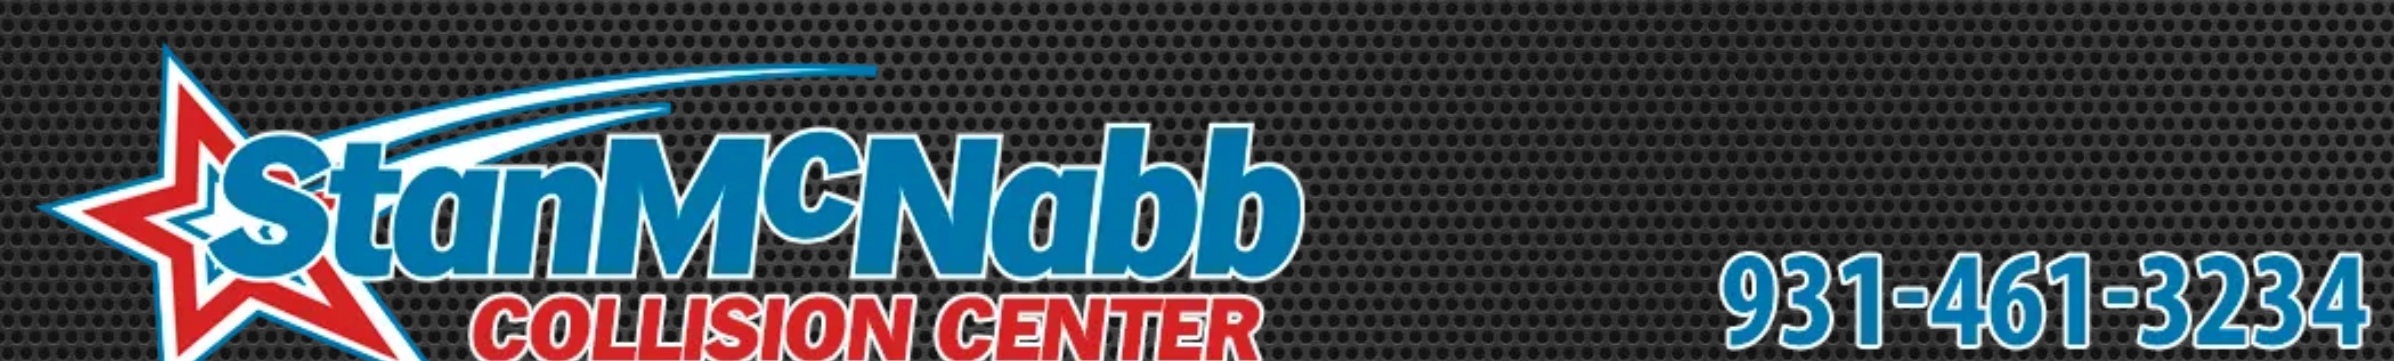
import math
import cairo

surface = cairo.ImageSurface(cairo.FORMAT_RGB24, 2394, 361)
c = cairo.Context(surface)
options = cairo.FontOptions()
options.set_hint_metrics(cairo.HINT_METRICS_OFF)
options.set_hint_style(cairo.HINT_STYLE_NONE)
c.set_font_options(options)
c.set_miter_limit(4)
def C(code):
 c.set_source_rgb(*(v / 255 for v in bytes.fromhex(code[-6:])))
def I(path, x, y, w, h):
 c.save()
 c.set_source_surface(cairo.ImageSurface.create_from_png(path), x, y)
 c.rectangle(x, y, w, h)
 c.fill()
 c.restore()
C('ffffff')
c.paint()
I('1.png',0,0,2394,361)
I('2.png',33,40,2340,321)
surface.write_to_png('o.png')
